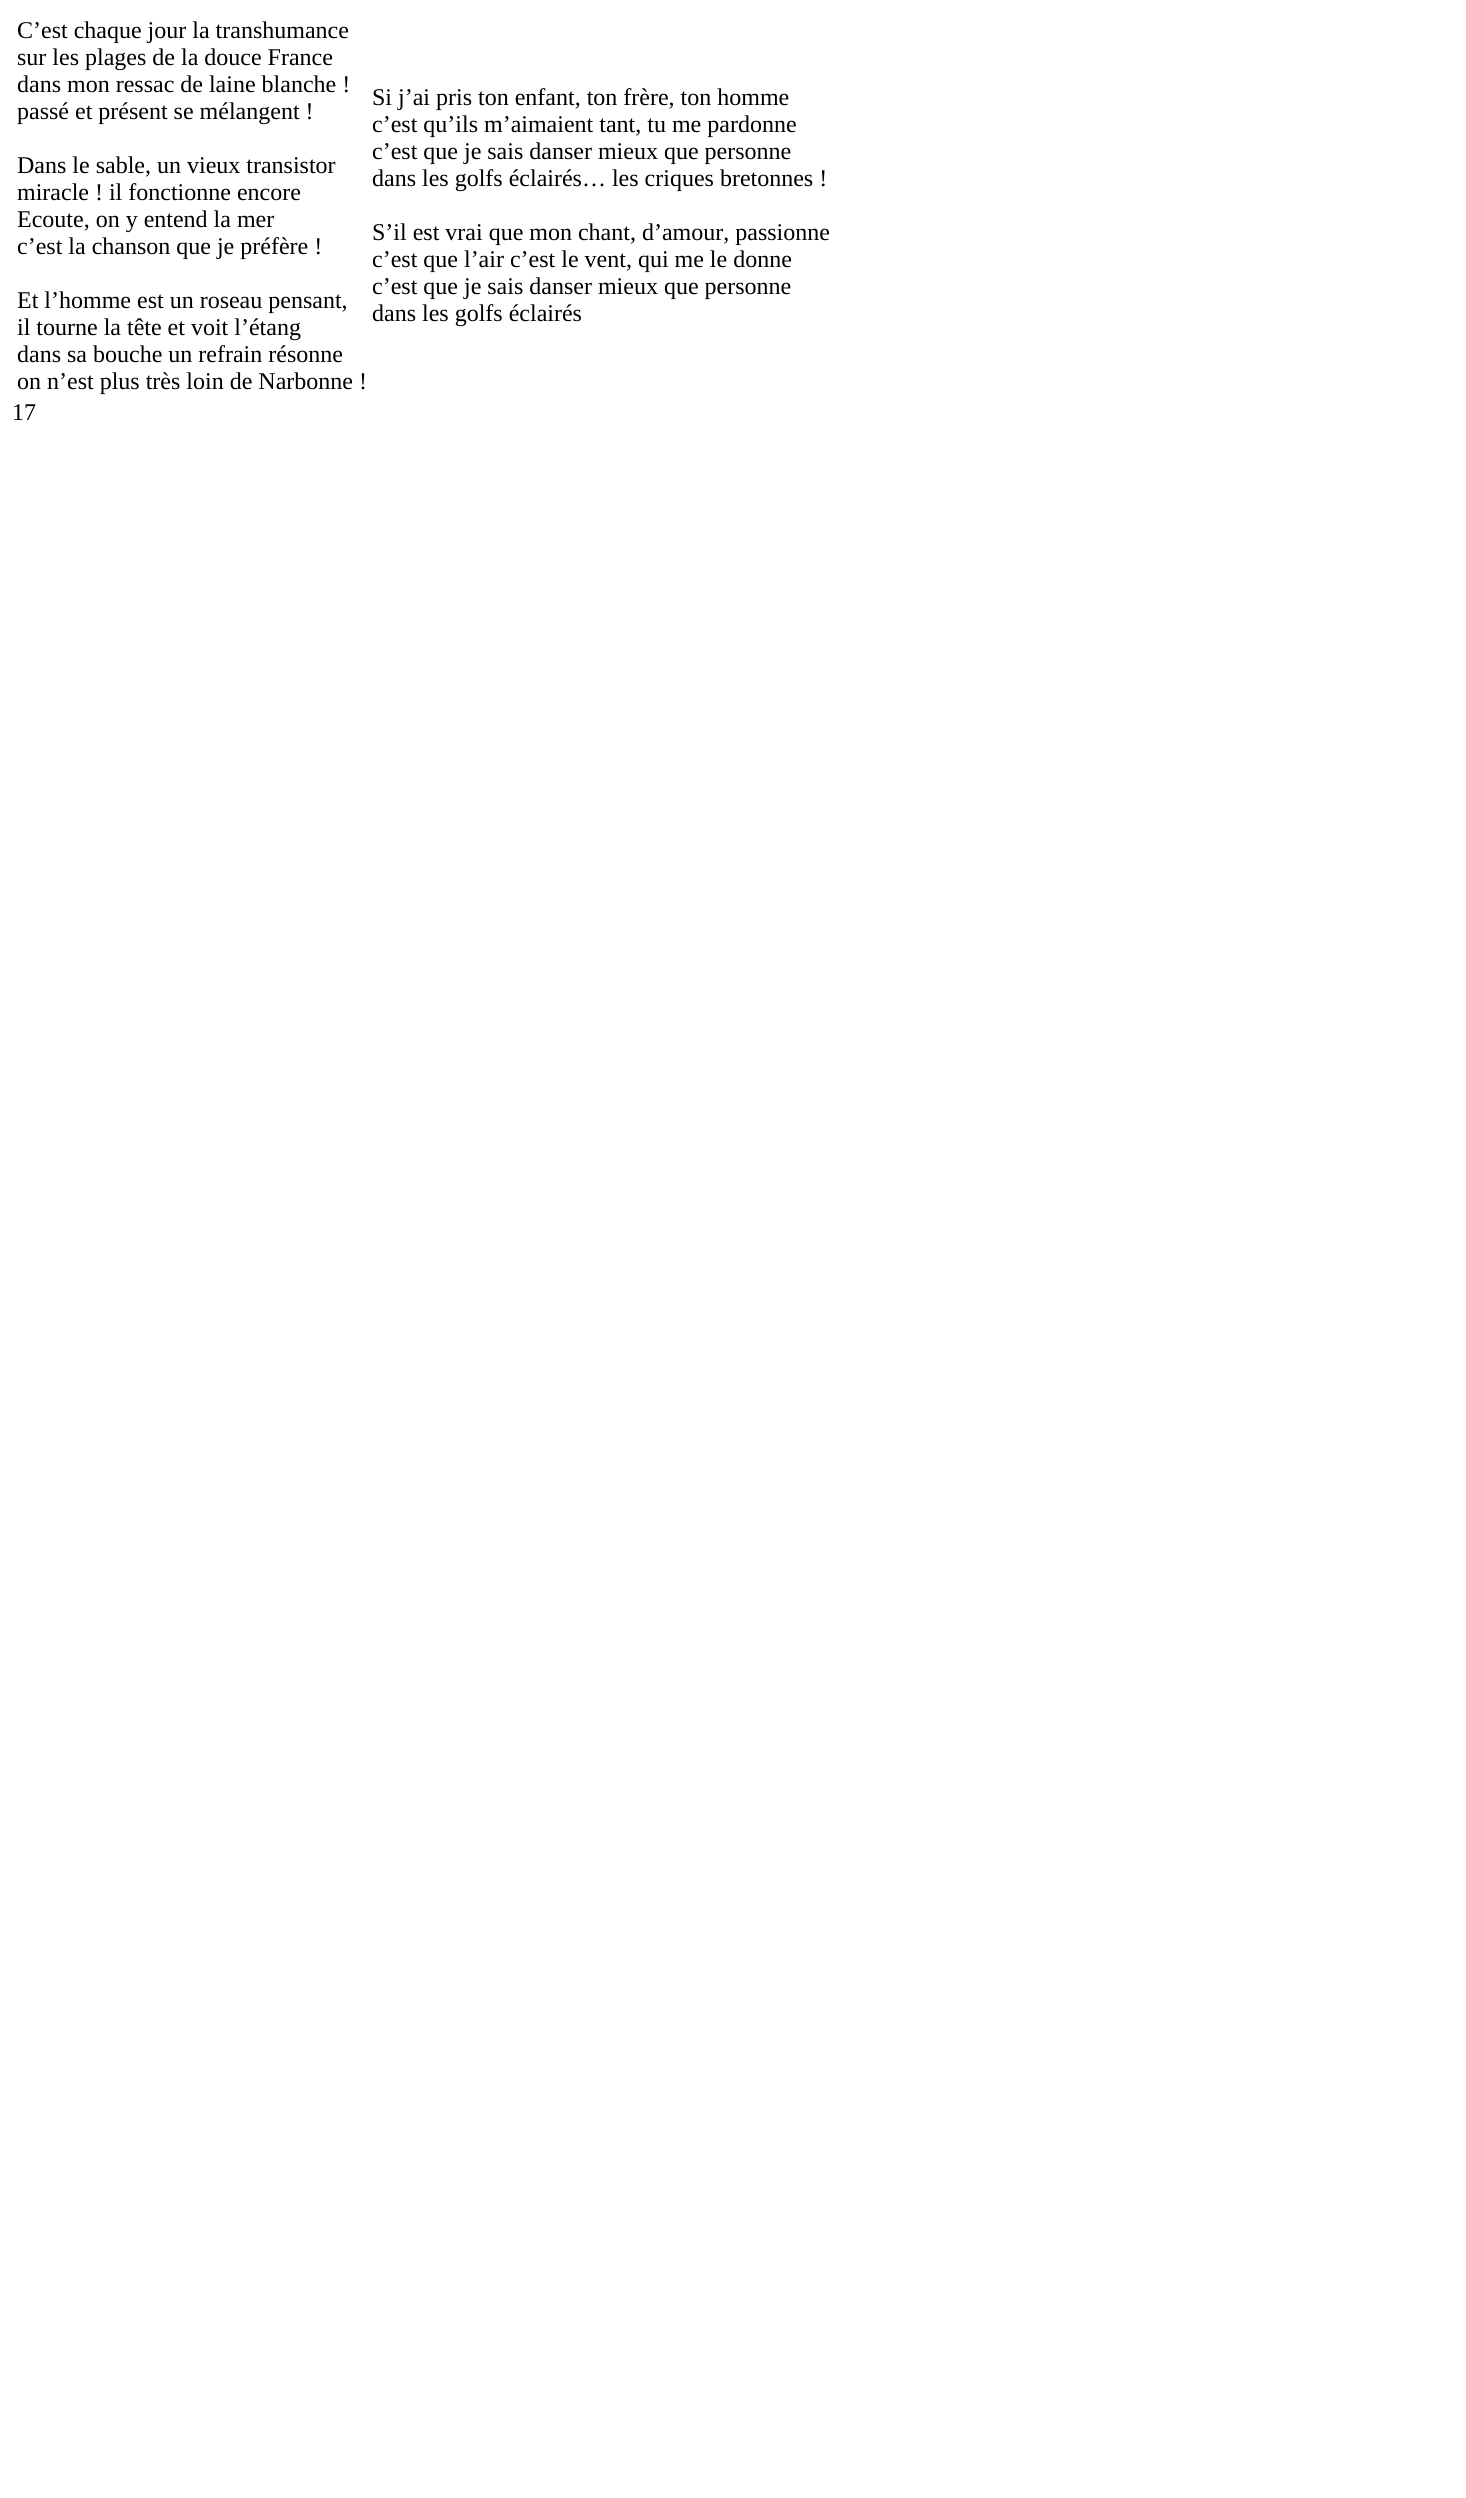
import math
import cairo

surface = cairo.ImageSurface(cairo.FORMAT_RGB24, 1466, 2498)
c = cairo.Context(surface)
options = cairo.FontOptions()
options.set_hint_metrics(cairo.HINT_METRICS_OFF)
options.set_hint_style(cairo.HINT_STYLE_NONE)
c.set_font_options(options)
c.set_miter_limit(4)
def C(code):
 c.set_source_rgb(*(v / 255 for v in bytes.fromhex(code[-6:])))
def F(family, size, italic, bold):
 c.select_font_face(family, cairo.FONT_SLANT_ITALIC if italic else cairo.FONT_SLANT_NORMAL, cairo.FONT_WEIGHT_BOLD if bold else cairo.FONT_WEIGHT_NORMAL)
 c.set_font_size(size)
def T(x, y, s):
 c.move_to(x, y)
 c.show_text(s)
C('ffffff')
c.paint()
F('Liberation Serif',24,0,0)
C('000000')
T(17,38,'C’est chaque jour la transhumance')
T(17,65,'sur les plages de la douce France')
T(17,92,'dans mon ressac de laine blanche !')
T(17,119,'passé et présent se mélangent !')
T(17,173,'Dans le sable, un vieux transistor')
T(17,200,'miracle ! il fonctionne encore')
T(17,227,'Ecoute, on y entend la mer')
T(17,254,'c’est la chanson que je préfère !')
T(17,308,'Et l’homme est un roseau pensant,')
T(17,335,'il tourne la tête et voit l’étang')
T(17,362,'dans sa bouche un refrain résonne')
T(17,389,'on n’est plus très loin de Narbonne !')
T(372,105,'Si j’ai pris ton enfant, ton frère, ton homme')
T(372,132,'c’est qu’ils m’aimaient tant, tu me pardonne')
T(372,159,'c’est que je sais danser mieux que personne')
T(372,186,'dans les golfs éclairés… les criques bretonnes !')
T(372,240,'S’il est vrai que mon chant, d’amour, passionne')
T(372,267,'c’est que l’air c’est le vent, qui me le donne')
T(372,294,'c’est que je sais danser mieux que personne')
T(372,321,'dans les golfs éclairés')
T(12,420,'17')
surface.write_to_png('o.png')
